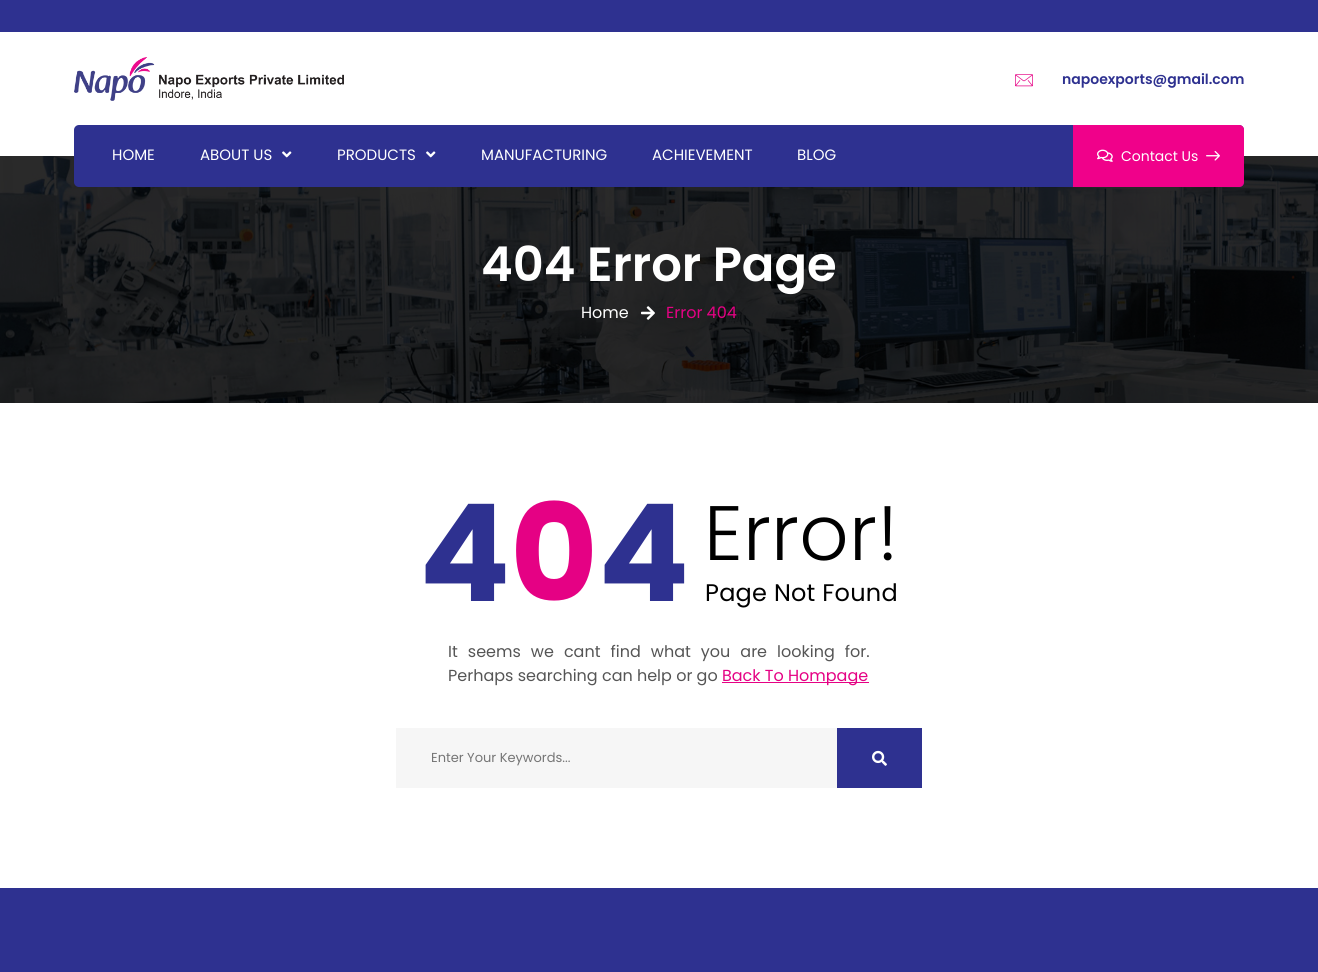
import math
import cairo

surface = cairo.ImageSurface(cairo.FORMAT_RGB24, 1318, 972)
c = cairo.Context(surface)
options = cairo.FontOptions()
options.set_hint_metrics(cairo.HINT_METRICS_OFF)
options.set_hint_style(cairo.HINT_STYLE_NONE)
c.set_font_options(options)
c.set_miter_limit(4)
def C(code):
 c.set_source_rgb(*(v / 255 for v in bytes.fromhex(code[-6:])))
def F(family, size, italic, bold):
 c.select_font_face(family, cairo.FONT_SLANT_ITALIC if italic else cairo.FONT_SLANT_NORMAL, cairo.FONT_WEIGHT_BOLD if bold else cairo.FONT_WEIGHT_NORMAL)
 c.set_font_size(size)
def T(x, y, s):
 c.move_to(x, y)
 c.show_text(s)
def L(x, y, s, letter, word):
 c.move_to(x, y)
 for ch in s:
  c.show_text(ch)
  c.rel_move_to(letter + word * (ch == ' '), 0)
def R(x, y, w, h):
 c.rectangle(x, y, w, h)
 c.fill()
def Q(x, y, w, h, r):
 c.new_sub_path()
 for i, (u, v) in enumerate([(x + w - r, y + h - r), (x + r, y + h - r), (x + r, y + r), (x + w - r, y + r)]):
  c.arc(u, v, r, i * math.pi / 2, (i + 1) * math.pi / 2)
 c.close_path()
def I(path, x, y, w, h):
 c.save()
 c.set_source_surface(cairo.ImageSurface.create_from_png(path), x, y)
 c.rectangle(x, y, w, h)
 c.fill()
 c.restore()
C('ffffff')
c.paint()
C('2e3190')
R(0,0,1318,32)
I('1.png',74,57,270,44)
I('2.png',1015,74,18,13)
F('Poppins SemiBold',14,0,0)
T(1062,84,'napoexports@gmail.com')
I('6.png',0,156,1318,247)
Q(74,125,1170,62,5)
c.fill()
F('Poppins',15,0,0)
C('ffffff')
T(112,160,'HOME')
T(200,160,'ABOUT US')
I('3.png',282,151,10,7)
T(337,160,'PRODUCTS')
I('3.png',426,151,10,7)
T(481,160,'MANUFACTURING')
T(652,160,'ACHIEVEMENT')
T(797,160,'BLOG')
C('f0018a')
c.new_path()
c.move_to(1073,125)
c.line_to(1239,125)
c.curve_to(1242,125,1244,127,1244,130)
c.line_to(1244,182)
c.curve_to(1244,185,1242,187,1239,187)
c.line_to(1073,187)
c.close_path()
c.fill()
I('4.png',1097,149,16,13)
F('Poppins',14,0,0)
C('ffffff')
T(1121,161,'Contact Us')
I('5.png',1206,151,14,10)
F('Poppins SemiBold',48,0,0)
T(481,281,'404 Error Page')
F('Poppins',16,0,0)
T(581,318,'Home')
I('7.png',641,306,14,14)
C('e50184')
T(666,318,'Error 404')
F('Poppins',135,0,1)
C('2e3190')
T(419,601,'4')
C('e50184')
T(510,601,'0')
C('2e3190')
T(598,601,'4')
F('Poppins Light',77,0,0)
C('000000')
L(704,560,'Error!',.25,0)
F('Poppins',24,0,0)
L(705,601,'Page Not Found',.25,0)
F('Poppins',16,0,0)
C('555555')
L(448,657,'It seems we cant find what you are looking for.',0,5.75)
T(448,681,'Perhaps searching can help or go')
C('e50184')
R(722,682,147,1)
T(722,681,'Back To Hompage')
C('f6f6f6')
R(396,728,441,60)
F('Poppins',13,0,0)
C('757575')
T(431,762,'Enter Your Keywords...')
C('2e3190')
R(837,728,85,60)
I('8.png',872,750,15,16)
R(0,888,1318,84)
surface.write_to_png('o.png')
